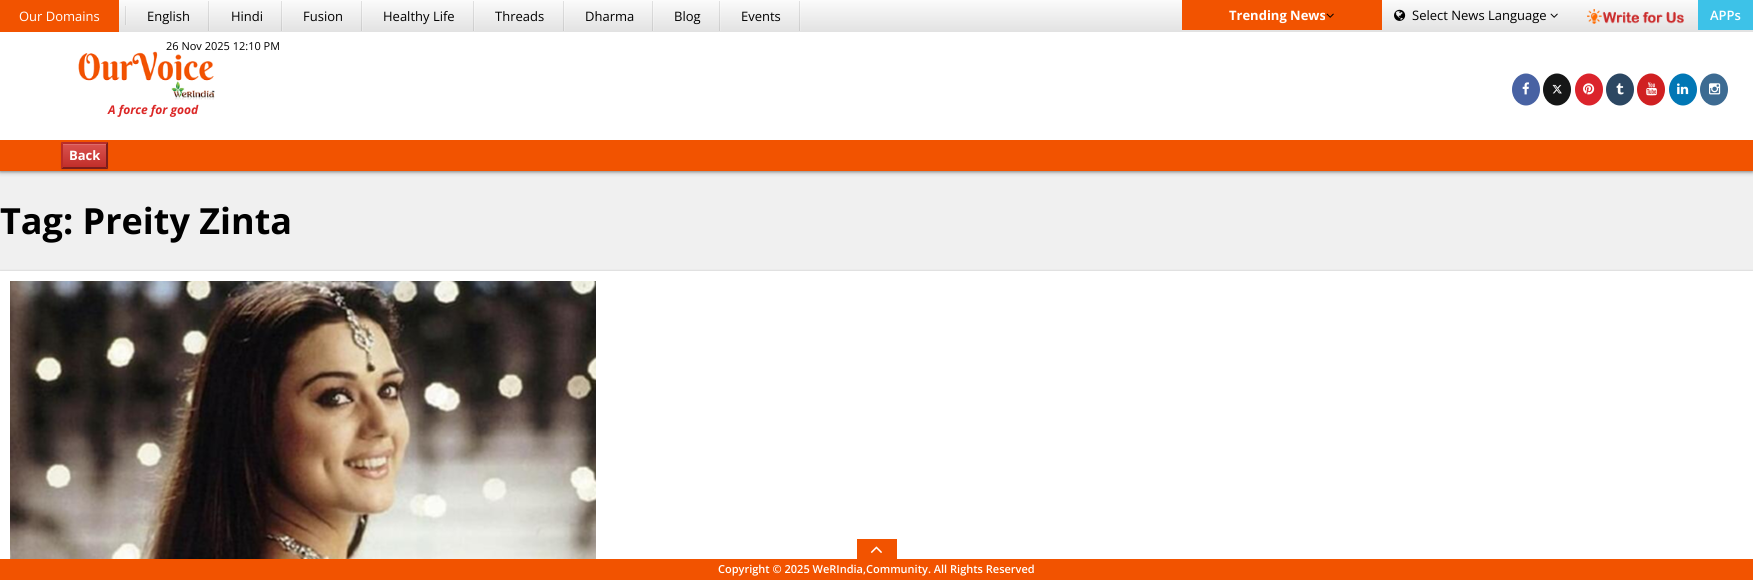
import math
import cairo

surface = cairo.ImageSurface(cairo.FORMAT_RGB24, 1753, 580)
c = cairo.Context(surface)
options = cairo.FontOptions()
options.set_hint_metrics(cairo.HINT_METRICS_OFF)
options.set_hint_style(cairo.HINT_STYLE_NONE)
c.set_font_options(options)
c.set_miter_limit(4)
def C(code):
 c.set_source_rgb(*(v / 255 for v in bytes.fromhex(code[-6:])))
def F(family, size, italic, bold):
 c.select_font_face(family, cairo.FONT_SLANT_ITALIC if italic else cairo.FONT_SLANT_NORMAL, cairo.FONT_WEIGHT_BOLD if bold else cairo.FONT_WEIGHT_NORMAL)
 c.set_font_size(size)
def T(x, y, s):
 c.move_to(x, y)
 c.show_text(s)
def R(x, y, w, h):
 c.rectangle(x, y, w, h)
 c.fill()
def Q(x, y, w, h, r):
 c.new_sub_path()
 for i, (u, v) in enumerate([(x + w - r, y + h - r), (x + r, y + h - r), (x + r, y + r), (x + w - r, y + r)]):
  c.arc(u, v, r, i * math.pi / 2, (i + 1) * math.pi / 2)
 c.close_path()
def S(x, y, w, h, r, blur, alpha):
 c.push_group_with_content(cairo.CONTENT_ALPHA)
 c.set_operator(cairo.OPERATOR_SOURCE)
 for i in range(15, -16, -2):
  e = blur * i / 6
  if min(w, h) + 2 * e > 0:
   c.set_source_rgba(0, 0, 0, alpha * math.erfc((i - 1) / 8.5) / 2)
   Q(x - e, y - e, w + 2 * e, h + 2 * e, max(0, min(r + e + blur * .6, min(w, h) / 2 + e)))
   c.fill()
 c.mask(c.pop_group())
def I(path, x, y, w, h):
 c.save()
 c.set_source_surface(cairo.ImageSurface.create_from_png(path), x, y)
 c.rectangle(x, y, w, h)
 c.fill()
 c.restore()
C('f0f0f0')
c.paint()
C('000000')
S(0,0,1753,171,0,2.5,.7)
C('ffffff')
R(0,32,1753,108)
gradient = cairo.LinearGradient(877,0,877,32)
gradient.add_color_stop_rgba(0,0.984,0.984,0.984,1)
gradient.add_color_stop_rgba(1,0.886,0.886,0.886,1)
c.set_source(gradient)
R(119,0,1634,32)
gradient = cairo.LinearGradient(877,0,877,32)
gradient.add_color_stop_rgba(0,0.886,0.886,0.886,1)
gradient.add_color_stop_rgba(1,0.796,0.796,0.796,1)
c.set_source(gradient)
R(799,1,1,30)
gradient = cairo.LinearGradient(877,0,877,32)
gradient.add_color_stop_rgba(0,0.988,0.988,0.988,1)
gradient.add_color_stop_rgba(1,0.91,0.91,0.91,1)
c.set_source(gradient)
R(800,1,1,30)
gradient = cairo.LinearGradient(877,0,877,32)
gradient.add_color_stop_rgba(0,0.886,0.886,0.886,1)
gradient.add_color_stop_rgba(1,0.796,0.796,0.796,1)
c.set_source(gradient)
R(719,1,1,30)
gradient = cairo.LinearGradient(877,0,877,32)
gradient.add_color_stop_rgba(0,0.988,0.988,0.988,1)
gradient.add_color_stop_rgba(1,0.91,0.91,0.91,1)
c.set_source(gradient)
R(720,1,1,30)
gradient = cairo.LinearGradient(877,0,877,32)
gradient.add_color_stop_rgba(0,0.886,0.886,0.886,1)
gradient.add_color_stop_rgba(1,0.796,0.796,0.796,1)
c.set_source(gradient)
R(652,1,1,30)
gradient = cairo.LinearGradient(877,0,877,32)
gradient.add_color_stop_rgba(0,0.988,0.988,0.988,1)
gradient.add_color_stop_rgba(1,0.91,0.91,0.91,1)
c.set_source(gradient)
R(653,1,1,30)
gradient = cairo.LinearGradient(877,0,877,32)
gradient.add_color_stop_rgba(0,0.886,0.886,0.886,1)
gradient.add_color_stop_rgba(1,0.796,0.796,0.796,1)
c.set_source(gradient)
R(563,1,1,30)
gradient = cairo.LinearGradient(877,0,877,32)
gradient.add_color_stop_rgba(0,0.988,0.988,0.988,1)
gradient.add_color_stop_rgba(1,0.91,0.91,0.91,1)
c.set_source(gradient)
R(564,1,1,30)
gradient = cairo.LinearGradient(877,0,877,32)
gradient.add_color_stop_rgba(0,0.886,0.886,0.886,1)
gradient.add_color_stop_rgba(1,0.796,0.796,0.796,1)
c.set_source(gradient)
R(473,1,1,30)
gradient = cairo.LinearGradient(877,0,877,32)
gradient.add_color_stop_rgba(0,0.988,0.988,0.988,1)
gradient.add_color_stop_rgba(1,0.91,0.91,0.91,1)
c.set_source(gradient)
R(474,1,1,30)
gradient = cairo.LinearGradient(877,0,877,32)
gradient.add_color_stop_rgba(0,0.886,0.886,0.886,1)
gradient.add_color_stop_rgba(1,0.796,0.796,0.796,1)
c.set_source(gradient)
R(361,1,1,30)
gradient = cairo.LinearGradient(877,0,877,32)
gradient.add_color_stop_rgba(0,0.988,0.988,0.988,1)
gradient.add_color_stop_rgba(1,0.91,0.91,0.91,1)
c.set_source(gradient)
R(362,1,1,30)
gradient = cairo.LinearGradient(877,0,877,32)
gradient.add_color_stop_rgba(0,0.886,0.886,0.886,1)
gradient.add_color_stop_rgba(1,0.796,0.796,0.796,1)
c.set_source(gradient)
R(281,1,1,30)
gradient = cairo.LinearGradient(877,0,877,32)
gradient.add_color_stop_rgba(0,0.988,0.988,0.988,1)
gradient.add_color_stop_rgba(1,0.91,0.91,0.91,1)
c.set_source(gradient)
R(282,1,1,30)
gradient = cairo.LinearGradient(877,0,877,32)
gradient.add_color_stop_rgba(0,0.886,0.886,0.886,1)
gradient.add_color_stop_rgba(1,0.796,0.796,0.796,1)
c.set_source(gradient)
R(208,1,1,30)
gradient = cairo.LinearGradient(877,0,877,32)
gradient.add_color_stop_rgba(0,0.988,0.988,0.988,1)
gradient.add_color_stop_rgba(1,0.91,0.91,0.91,1)
c.set_source(gradient)
R(209,1,1,30)
gradient = cairo.LinearGradient(877,0,877,32)
gradient.add_color_stop_rgba(0,0.886,0.886,0.886,1)
gradient.add_color_stop_rgba(1,0.796,0.796,0.796,1)
c.set_source(gradient)
R(125,6,1,19)
gradient = cairo.LinearGradient(877,0,877,32)
gradient.add_color_stop_rgba(0,0.988,0.988,0.988,1)
gradient.add_color_stop_rgba(1,0.91,0.91,0.91,1)
c.set_source(gradient)
R(126,6,1,19)
C('f25300')
R(0,0,119,32)
F('Open Sans',13,0,0)
C('ffffff')
T(19,21,'Our Domains')
C('000000')
T(147,21,'English')
T(231,21,'Hindi')
T(303,21,'Fusion')
T(383,21,'Healthy Life')
T(495,21,'Threads')
T(585,21,'Dharma')
T(674,21,'Blog')
T(741,21,'Events')
C('f25300')
R(1182,0,200,30)
F('Open Sans',13,0,1)
C('ffffff')
T(1229,20,'Trending News')
I('1.png',1326,13,8,5)
I('2.png',1394,9,12,12)
F('Open Sans',13,0,0)
C('000000')
T(1412,20,'Select News Language')
I('3.png',1550,13,8,5)
I('4.png',1587,9,97,15)
C('3dc2e8')
R(1698,0,55,30)
F('Open Sans SemiBold',13,0,0)
C('ffffff')
T(1710,20,'APPs')
F('Open Sans',11,0,0)
C('000000')
T(166,50,'26 Nov 2025 12:10 PM')
I('5.png',78,51,137,49)
F('Open Sans',12,1,1)
C('db2726')
T(108,114,'A force for good')
C('4862a3')
c.new_path()
c.move_to(1526,73.5)
c.curve_to(1533.5,73.5,1540,80.5,1540,89.5)
c.curve_to(1540,98.5,1533.5,105.5,1526,105.5)
c.curve_to(1518.5,105.5,1512,98.5,1512,89.5)
c.curve_to(1512,80.5,1518.5,73.5,1526,73.5)
c.close_path()
c.fill()
I('6.png',1522,82,7,13)
C('151616')
c.new_path()
c.move_to(1557,73.5)
c.curve_to(1564.5,73.5,1571,80.5,1571,89.5)
c.curve_to(1571,98.5,1564.5,105.5,1557,105.5)
c.curve_to(1549.5,105.5,1543,98.5,1543,89.5)
c.curve_to(1543,80.5,1549.5,73.5,1557,73.5)
c.close_path()
c.fill()
I('7.png',1552,84,10,10)
C('db242c')
c.new_path()
c.move_to(1589,73.5)
c.curve_to(1596.5,73.5,1603,80.5,1603,89.5)
c.curve_to(1603,98.5,1596.5,105.5,1589,105.5)
c.curve_to(1581.5,105.5,1575,98.5,1575,89.5)
c.curve_to(1575,80.5,1581.5,73.5,1589,73.5)
c.close_path()
c.fill()
I('8.png',1583,83,12,12)
C('2c4762')
c.new_path()
c.move_to(1620,73.5)
c.curve_to(1627.5,73.5,1634,80.5,1634,89.5)
c.curve_to(1634,98.5,1627.5,105.5,1620,105.5)
c.curve_to(1612.5,105.5,1606,98.5,1606,89.5)
c.curve_to(1606,80.5,1612.5,73.5,1620,73.5)
c.close_path()
c.fill()
I('9.png',1616,83,8,12)
C('d02022')
c.new_path()
c.move_to(1651,73.5)
c.curve_to(1658.5,73.5,1665,80.5,1665,89.5)
c.curve_to(1665,98.5,1658.5,105.5,1651,105.5)
c.curve_to(1643.5,105.5,1637,98.5,1637,89.5)
c.curve_to(1637,80.5,1643.5,73.5,1651,73.5)
c.close_path()
c.fill()
I('10.png',1646,82,11,14)
C('0177b5')
c.new_path()
c.move_to(1683,73.5)
c.curve_to(1690.5,73.5,1697,80.5,1697,89.5)
c.curve_to(1697,98.5,1690.5,105.5,1683,105.5)
c.curve_to(1675.5,105.5,1669,98.5,1669,89.5)
c.curve_to(1669,80.5,1675.5,73.5,1683,73.5)
c.close_path()
c.fill()
I('11.png',1677,83,12,12)
C('3d6b92')
c.new_path()
c.move_to(1714,73.5)
c.curve_to(1721.5,73.5,1728,80.5,1728,89.5)
c.curve_to(1728,98.5,1721.5,105.5,1714,105.5)
c.curve_to(1706.5,105.5,1700,98.5,1700,89.5)
c.curve_to(1700,80.5,1706.5,73.5,1714,73.5)
c.close_path()
c.fill()
I('12.png',1709,83,12,12)
C('f25300')
R(0,140,1753,31)
C('000000')
S(61,143,47,27,0,.5,.07)
gradient = cairo.LinearGradient(85,144,85,167)
gradient.add_color_stop_rgba(0,0.851,0.325,0.31,1)
gradient.add_color_stop_rgba(1,0.757,0.18,0.165,1)
c.set_source(gradient)
R(63,145,43,22)
C('de6c69')
R(63,144,43,1)
C('b92c28')
c.new_path()
c.move_to(61,142)
c.line_to(108,142)
c.line_to(106,144)
c.line_to(63,144)
c.close_path()
c.fill()
C('7b1d1b')
c.new_path()
c.move_to(108,142)
c.line_to(108,169)
c.line_to(106,167)
c.line_to(106,144)
c.close_path()
c.fill()
c.new_path()
c.move_to(108,169)
c.line_to(61,169)
c.line_to(63,167)
c.line_to(106,167)
c.close_path()
c.fill()
C('b92c28')
c.new_path()
c.move_to(61,169)
c.line_to(61,142)
c.line_to(63,144)
c.line_to(63,167)
c.close_path()
c.fill()
F('Open Sans',13,0,1)
C('ffffff')
T(69,160,'Back')
F('Open Sans',36,0,1)
C('000000')
T(0,234,'Tag: Preity Zinta')
C('000000')
S(0,271,1753,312,0,1,.2)
C('ffffff')
R(0,271,1753,288)
I('13.png',10,281,586,278)
C('f25300')
R(0,559,1753,21)
R(857,539,40,20)
I('14.png',870,546,12,7)
F('Open Sans SemiBold',11,0,0)
C('ffffff')
T(718,573,'Copyright © 2025 WeRIndia,Community. All Rights Reserved')
surface.write_to_png('o.png')
